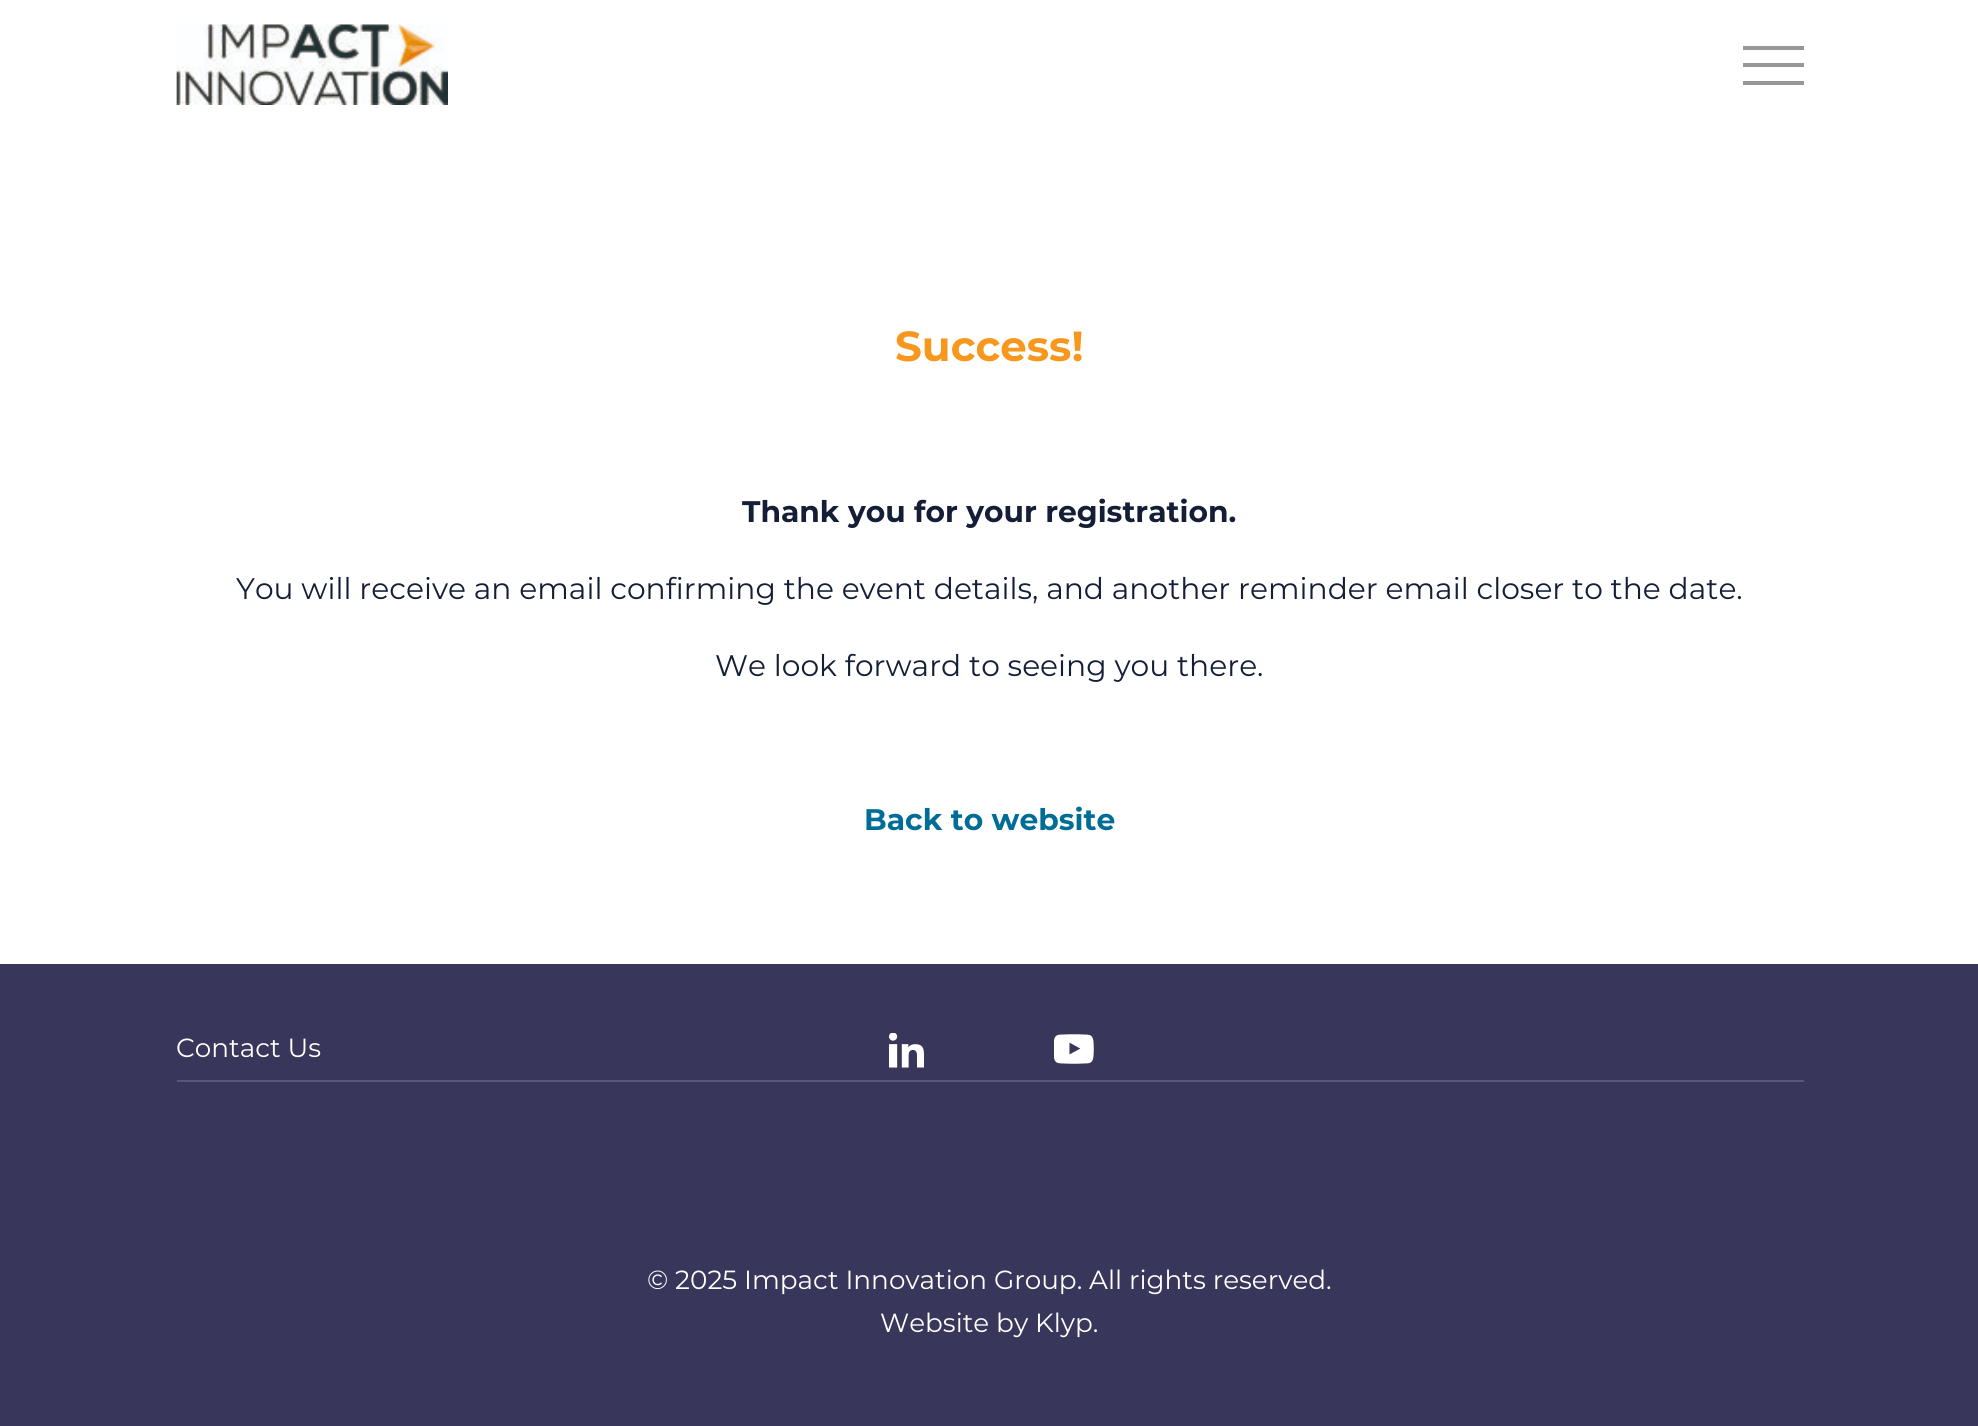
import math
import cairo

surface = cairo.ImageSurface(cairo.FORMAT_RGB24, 1978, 1426)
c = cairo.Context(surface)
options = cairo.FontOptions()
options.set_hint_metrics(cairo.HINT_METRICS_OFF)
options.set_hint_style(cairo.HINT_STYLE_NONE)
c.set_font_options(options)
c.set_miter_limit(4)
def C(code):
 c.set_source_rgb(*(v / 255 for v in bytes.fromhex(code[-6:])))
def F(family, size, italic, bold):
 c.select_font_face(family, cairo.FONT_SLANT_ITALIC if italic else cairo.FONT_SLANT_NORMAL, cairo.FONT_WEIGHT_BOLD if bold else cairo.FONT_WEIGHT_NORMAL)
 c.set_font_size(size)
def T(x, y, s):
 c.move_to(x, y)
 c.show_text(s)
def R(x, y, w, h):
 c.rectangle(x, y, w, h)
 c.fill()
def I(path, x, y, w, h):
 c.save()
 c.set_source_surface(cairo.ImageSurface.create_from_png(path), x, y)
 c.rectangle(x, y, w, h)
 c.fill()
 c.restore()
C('ffffff')
c.paint()
I('1.png',176,24,272,81)
C('979797')
R(1743,63,61,4)
R(1743,46,61,4)
R(1743,81,61,4)
F('Montserrat',42,0,1)
C('f7971d')
T(895,361,'Success!')
F('Montserrat',29.75,0,1)
C('141f37')
T(742,522,'Thank you for your registration.')
F('Montserrat',29.75,0,0)
T(236,599,'You will receive an email confirming the event details, and another reminder email closer to the date.')
T(715,676,'We look forward to seeing you there.')
F('Montserrat',29.75,0,1)
C('006d96')
T(864,830,'Back to website')
C('38365a')
R(0,964,1978,462)
F('Montserrat',26.25,0,0)
C('ffffff')
T(176,1057,'Contact Us')
I('2.png',889,1033,35,35)
I('3.png',1054,1034,40,30)
C('5a5876')
R(177,1080,1627,2)
C('ffffff')
T(647,1289,'© 2025 Impact Innovation Group. All rights reserved.')
T(880,1332,'Website by Klyp.')
surface.write_to_png('o.png')
